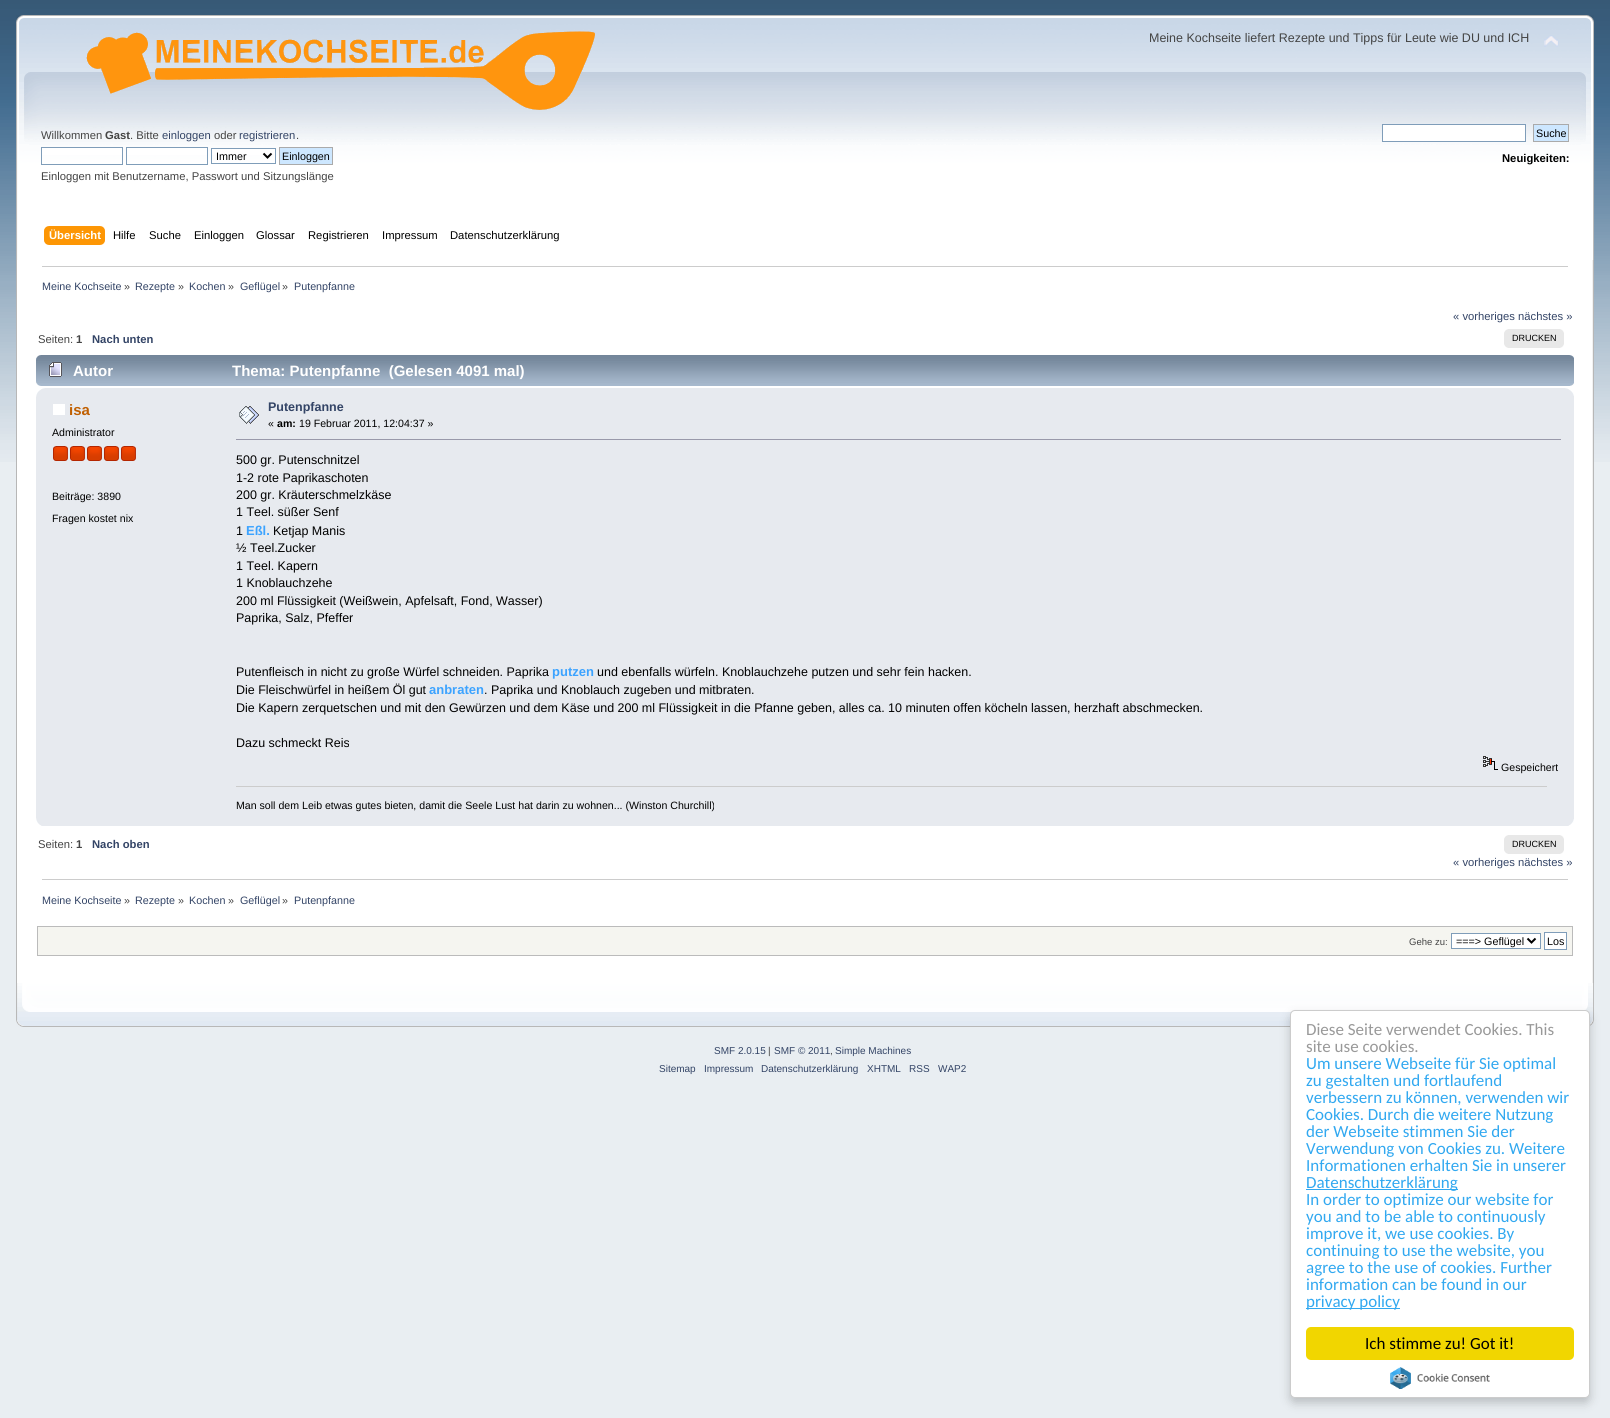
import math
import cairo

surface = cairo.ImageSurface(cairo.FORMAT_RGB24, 1610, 1418)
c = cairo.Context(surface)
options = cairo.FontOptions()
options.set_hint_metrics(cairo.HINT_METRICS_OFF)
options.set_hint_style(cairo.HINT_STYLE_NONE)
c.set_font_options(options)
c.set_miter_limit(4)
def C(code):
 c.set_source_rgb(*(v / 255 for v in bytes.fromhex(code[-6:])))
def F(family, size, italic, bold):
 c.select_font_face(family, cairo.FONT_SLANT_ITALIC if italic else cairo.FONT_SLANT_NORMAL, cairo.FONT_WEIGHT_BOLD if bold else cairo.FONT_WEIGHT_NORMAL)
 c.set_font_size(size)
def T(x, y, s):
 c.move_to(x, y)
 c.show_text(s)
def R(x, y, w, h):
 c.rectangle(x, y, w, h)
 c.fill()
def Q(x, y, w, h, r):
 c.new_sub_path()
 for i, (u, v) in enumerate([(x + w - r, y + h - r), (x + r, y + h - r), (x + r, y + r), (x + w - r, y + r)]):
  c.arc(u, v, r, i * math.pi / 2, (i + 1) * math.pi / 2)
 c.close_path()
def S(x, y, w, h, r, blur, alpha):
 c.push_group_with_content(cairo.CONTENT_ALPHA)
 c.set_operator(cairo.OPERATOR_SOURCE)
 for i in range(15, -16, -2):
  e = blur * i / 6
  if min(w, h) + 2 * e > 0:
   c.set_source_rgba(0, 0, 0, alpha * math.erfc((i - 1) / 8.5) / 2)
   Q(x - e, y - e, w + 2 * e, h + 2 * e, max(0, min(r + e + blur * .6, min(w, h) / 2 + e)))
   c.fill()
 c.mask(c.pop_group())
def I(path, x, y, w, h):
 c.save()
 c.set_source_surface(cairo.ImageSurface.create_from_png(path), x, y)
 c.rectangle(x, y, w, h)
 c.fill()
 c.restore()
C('e9eef2')
c.paint()
I('1.png',0,0,1610,462)
I('2.png',16,15,1564,245)
I('3.png',1580,15,14,245)
I('4.png',86,31,509,79)
F('Liberation Sans',12.48,0,0)
C('444444')
T(1149,42,'Meine Kochseite liefert Rezepte und Tipps für Leute wie DU und ICH')
I('5.png',1544,35,15,12)
F('Liberation Sans',11.25,0,0)
T(41,139,'Willkommen')
F('Liberation Sans',11.25,0,1)
T(105,139,'Gast')
F('Liberation Sans',11.25,0,0)
T(130,139,'. Bitte')
C('334466')
T(162,139,'einloggen')
C('444444')
T(214,139,'oder')
C('334466')
T(239,139,'registrieren')
C('444444')
T(296,139,'.')
C('ffffff')
R(42,148,80,7)
c.rectangle(41.5,147.5,81,17)
C('7f9db9')
c.set_line_width(1)
c.stroke()
C('ffffff')
R(127,148,80,7)
c.rectangle(126.5,147.5,81,17)
C('7f9db9')
c.stroke()
C('ffffff')
R(212,149,63,6)
c.rectangle(211.5,148.5,64,15)
C('7f9db9')
c.stroke()
c.new_path()
c.move_to(263.5,153.5)
c.line_to(267.5,157.5)
c.line_to(271.5,153.5)
C('000000')
c.set_line_width(2)
c.stroke()
F('Liberation Sans',10.75,0,0)
T(216,160,'Immer')
C('cde7ff')
c.rectangle(279.5,147.5,53,17)
c.fill_preserve()
C('aaaaaa')
c.set_line_width(1)
c.stroke()
C('000000')
T(282,160,'Einloggen')
F('Liberation Sans',11.25,0,0)
C('444444')
T(41,180,'Einloggen mit Benutzername, Passwort und Sitzungslänge')
C('ffffff')
c.rectangle(1382.5,124.5,143,17)
c.fill_preserve()
C('7f9db9')
c.stroke()
C('cde7ff')
c.rectangle(1533.5,124.5,35,17)
c.fill_preserve()
C('aaaaaa')
c.stroke()
F('Liberation Sans',10.75,0,0)
C('000000')
T(1536,137,'Suche')
F('Liberation Sans',11.25,0,1)
T(1502,162,'Neuigkeiten:')
I('6.png',49,226,56,19)
I('7.png',44,226,5,19)
C('ffffff')
T(49,239,'Übersicht')
F('Liberation Sans',11.25,0,0)
C('000000')
T(113,239,'Hilfe')
T(149,239,'Suche')
T(194,239,'Einloggen')
T(256,239,'Glossar')
T(308,239,'Registrieren')
T(382,239,'Impressum')
T(450,239,'Datenschutzerklärung')
C('ffffff')
R(17,260,1575,723)
C('b7b7b7')
R(16,260,1,723)
I('8.png',1592,260,2,723)
C('cccccc')
R(42,266,1526,1)
F('Liberation Sans',10.75,0,0)
C('334466')
T(42,290,'Meine Kochseite')
C('444444')
T(124,290,'»')
C('334466')
T(135,290,'Rezepte')
C('444444')
T(178,290,'»')
C('334466')
T(189,290,'Kochen')
C('444444')
T(228,290,'»')
C('334466')
T(240,290,'Geflügel')
C('444444')
T(282,290,'»')
C('334466')
T(294,290,'Putenpfanne')
F('Liberation Sans',11.25,0,0)
T(1453,320,'« vorheriges nächstes »')
C('444444')
T(38,343,'Seiten:')
F('Liberation Sans',11.25,0,1)
T(76,343,'1')
C('334466')
T(92,343,'Nach unten')
C('e8e8e8')
R(1508,329,52,19)
I('9.png',1504,329,4,19)
I('10.png',1560,329,4,19)
F('Liberation Sans',9,0,0)
C('000000')
T(1512,341,'DRUCKEN')
I('11.png',36,355,1533,31)
I('12.png',1569,355,5,31)
I('13.png',49,362,13,15)
F('Liberation Sans',15,0,1)
C('ffffff')
T(73,376,'Autor')
T(232,376,'Thema: Putenpfanne  (Gelesen 4091 mal)')
C('e7eaef')
R(36,388,1538,438)
I('14.png',36,388,9,9)
I('15.png',1565,388,9,8)
C('ffffff')
R(53,404,12,11)
C('c06002')
T(69,415,'isa')
F('Liberation Sans',10.6,0,0)
C('000000')
T(52,436,'Administrator')
I('16.png',53,446,15,15)
I('16.png',70,446,15,15)
I('16.png',87,446,15,15)
I('16.png',104,446,15,15)
I('16.png',121,446,15,15)
T(52,500,'Beiträge: 3890')
T(52,522,'Fragen kostet nix')
I('17.png',239,406,20,18)
F('Liberation Sans',12.48,0,1)
C('334466')
T(268,411,'Putenpfanne')
F('Liberation Sans',10.6,0,0)
C('000000')
T(268,427,'«')
F('Liberation Sans',10.6,0,1)
T(277,427,'am:')
F('Liberation Sans',10.6,0,0)
T(299,427,'19 Februar 2011, 12:04:37 »')
C('9999aa')
R(236,439,1325,1)
F('Liberation Sans',12.48,0,0)
C('000000')
T(236,464,'500 gr. Putenschnitzel')
T(236,482,'1-2 rote Paprikaschoten')
T(236,499,'200 gr. Kräuterschmelzkäse')
T(236,516,'1 Teel. süßer Senf')
T(236,535,'1')
F('Liberation Sans',13,0,1)
C('3ca3ff')
T(246,535,'Eßl.')
F('Liberation Sans',12.48,0,0)
C('000000')
T(273,535,'Ketjap Manis')
T(236,552,'½ Teel.Zucker')
T(236,570,'1 Teel. Kapern')
T(236,587,'1 Knoblauchzehe')
T(236,605,'200 ml Flüssigkeit (Weißwein, Apfelsaft, Fond, Wasser)')
T(236,622,'Paprika, Salz, Pfeffer')
T(236,676,'Putenfleisch in nicht zu große Würfel schneiden. Paprika')
F('Liberation Sans',13,0,1)
C('3ca3ff')
T(552,676,'putzen')
F('Liberation Sans',12.48,0,0)
C('000000')
T(597,676,'und ebenfalls würfeln. Knoblauchzehe putzen und sehr fein hacken.')
T(236,694,'Die Fleischwürfel in heißem Öl gut')
F('Liberation Sans',13,0,1)
C('3ca3ff')
T(429,694,'anbraten')
F('Liberation Sans',12.48,0,0)
C('000000')
T(484,694,'. Paprika und Knoblauch zugeben und mitbraten.')
T(236,712,'Die Kapern zerquetschen und mit den Gewürzen und dem Käse und 200 ml Flüssigkeit in die Pfanne geben, alles ca. 10 minuten offen köcheln lassen, herzhaft abschmecken.')
T(236,747,'Dazu schmeckt Reis')
I('18.png',1483,756,15,14)
F('Liberation Sans',10.6,0,0)
T(1501,771,'Gespeichert')
C('cccccc')
R(236,786,1311,1)
C('000000')
T(236,809,'Man soll dem Leib etwas gutes bieten, damit die Seele Lust hat darin zu wohnen... (Winston Churchill)')
I('19.png',36,818,6,8)
I('20.png',1568,819,6,7)
F('Liberation Sans',11.25,0,0)
C('444444')
T(38,848,'Seiten:')
F('Liberation Sans',11.25,0,1)
T(76,848,'1')
C('334466')
T(92,848,'Nach oben')
C('e8e8e8')
R(1508,835,52,19)
I('9.png',1504,835,4,19)
I('10.png',1560,835,4,19)
F('Liberation Sans',9,0,0)
C('000000')
T(1512,847,'DRUCKEN')
F('Liberation Sans',11.25,0,0)
C('334466')
T(1453,866,'« vorheriges nächstes »')
C('cccccc')
R(42,879,1526,1)
F('Liberation Sans',10.75,0,0)
C('334466')
T(42,904,'Meine Kochseite')
C('444444')
T(124,904,'»')
C('334466')
T(135,904,'Rezepte')
C('444444')
T(178,904,'»')
C('334466')
T(189,904,'Kochen')
C('444444')
T(228,904,'»')
C('334466')
T(240,904,'Geflügel')
C('444444')
T(282,904,'»')
C('334466')
T(294,904,'Putenpfanne')
C('f5f5f0')
c.rectangle(37.5,926.5,1535,29)
c.fill_preserve()
C('bbbbbb')
c.stroke()
F('Liberation Sans',9.5,0,0)
C('444444')
T(1409,945,'Gehe zu:')
C('ffffff')
c.rectangle(1451.5,933.5,89,15)
c.fill_preserve()
C('7f9db9')
c.stroke()
c.new_path()
c.move_to(1527.5,938.5)
c.line_to(1531.5,942.5)
c.line_to(1535.5,938.5)
C('000000')
c.set_line_width(2)
c.stroke()
F('Liberation Sans',10.75,0,0)
T(1456,945,'===> Geflügel')
C('ffffff')
c.rectangle(1544.5,932.5,22,17)
c.fill_preserve()
C('7f9db9')
c.set_line_width(1)
c.stroke()
C('000000')
T(1547,945,'Los')
I('21.png',16,983,1566,44)
I('22.png',1582,983,12,44)
F('Liberation Sans',10,0,0)
C('334466')
T(714,1054,'SMF 2.0.15')
C('444444')
T(768,1054,'|')
C('334466')
T(774,1054,'SMF © 2011')
C('444444')
T(830,1054,',')
C('334466')
T(835,1054,'Simple Machines')
T(659,1072,'Sitemap')
T(704,1072,'Impressum')
T(761,1072,'Datenschutzerklärung')
T(867,1072,'XHTML')
T(909,1072,'RSS')
T(938,1072,'WAP2')
C('000000')
S(1290,1015,300,388,5,5,.2)
C('ffffff')
Q(1290.5,1010.5,299,387,4.5)
c.fill_preserve()
C('cccccc')
c.stroke()
F('Carlito',17,0,0)
C('999999')
T(1306,1035,'Diese Seite verwendet Cookies. This')
T(1306,1052,'site use cookies.')
C('31a8f0')
T(1306,1069,'Um unsere Webseite für Sie optimal')
T(1306,1086,'zu gestalten und fortlaufend')
T(1306,1103,'verbessern zu können, verwenden wir')
T(1306,1120,'Cookies. Durch die weitere Nutzung')
T(1306,1137,'der Webseite stimmen Sie der')
T(1306,1154,'Verwendung von Cookies zu. Weitere')
T(1306,1171,'Informationen erhalten Sie in unserer')
R(1306,1189,152,1)
T(1306,1188,'Datenschutzerklärung')
T(1306,1205,'In order to optimize our website for')
T(1306,1222,'you and to be able to continuously')
T(1306,1239,'improve it, we use cookies. By')
T(1306,1256,'continuing to use the website, you')
T(1306,1273,'agree to the use of cookies. Further')
T(1306,1290,'information can be found in our')
R(1306,1308,94,1)
T(1306,1307,'privacy policy')
C('f1d600')
Q(1306,1327,268,33,5)
c.fill()
C('000000')
T(1365,1349,'Ich stimme zu! Got it!')
I('23.png',1390,1367,100,22)
surface.write_to_png('o.png')
